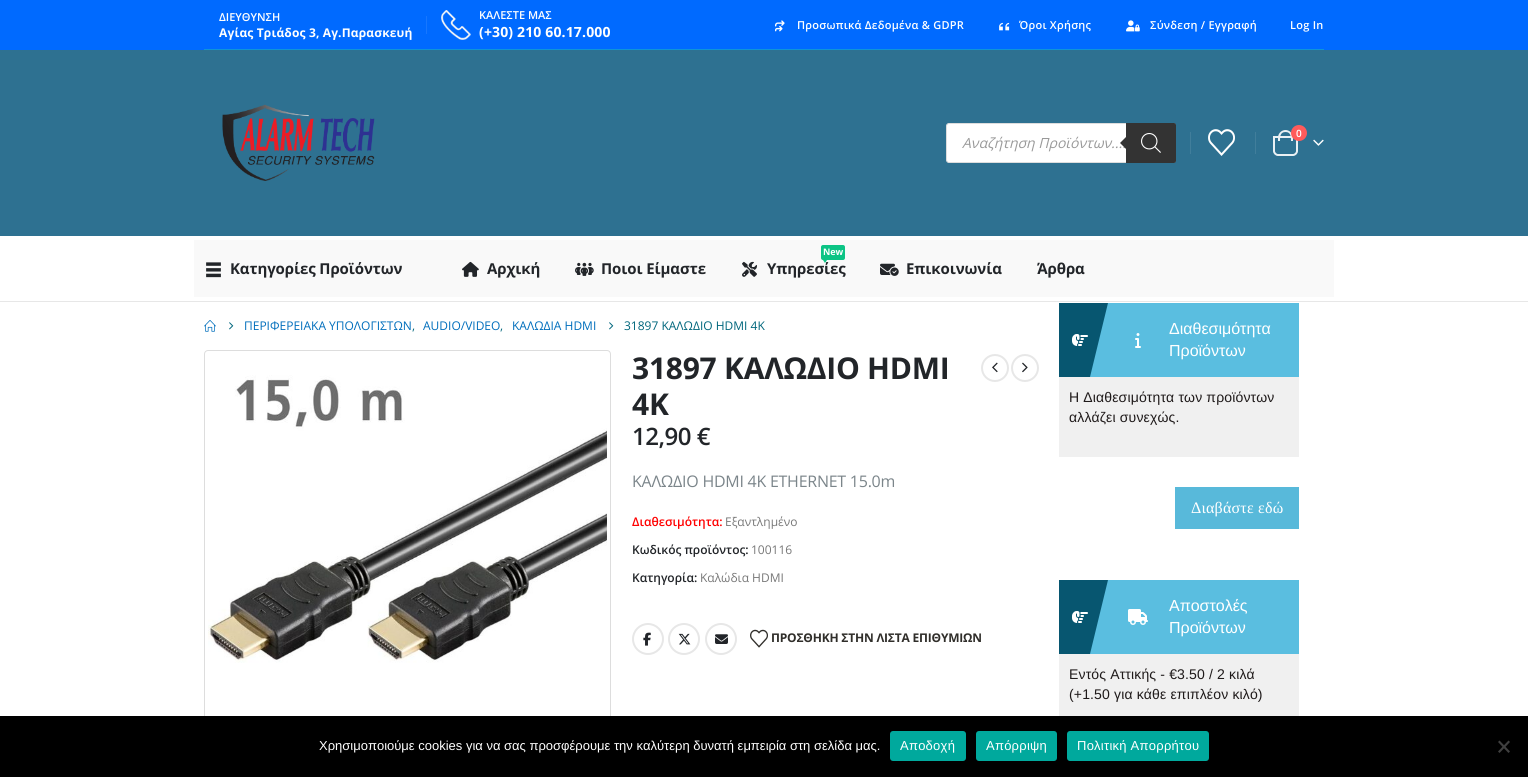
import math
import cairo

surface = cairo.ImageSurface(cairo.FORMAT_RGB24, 1528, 777)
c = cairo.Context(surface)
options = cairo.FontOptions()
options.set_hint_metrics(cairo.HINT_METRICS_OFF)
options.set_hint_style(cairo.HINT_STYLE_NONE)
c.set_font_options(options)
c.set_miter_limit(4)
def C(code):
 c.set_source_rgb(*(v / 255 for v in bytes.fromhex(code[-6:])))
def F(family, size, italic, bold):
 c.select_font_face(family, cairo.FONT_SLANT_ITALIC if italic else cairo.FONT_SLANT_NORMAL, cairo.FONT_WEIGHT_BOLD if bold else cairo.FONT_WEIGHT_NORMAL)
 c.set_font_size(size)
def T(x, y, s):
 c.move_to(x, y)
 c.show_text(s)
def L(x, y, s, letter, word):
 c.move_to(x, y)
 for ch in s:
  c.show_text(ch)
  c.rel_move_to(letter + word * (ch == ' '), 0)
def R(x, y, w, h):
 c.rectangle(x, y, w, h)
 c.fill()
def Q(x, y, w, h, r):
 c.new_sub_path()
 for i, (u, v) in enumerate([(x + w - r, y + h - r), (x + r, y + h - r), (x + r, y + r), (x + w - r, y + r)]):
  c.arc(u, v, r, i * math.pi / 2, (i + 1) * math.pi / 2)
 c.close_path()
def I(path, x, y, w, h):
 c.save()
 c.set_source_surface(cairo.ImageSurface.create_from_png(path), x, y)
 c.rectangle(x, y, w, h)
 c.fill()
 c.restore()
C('ffffff')
c.paint()
C('e7e7e7')
R(0,301,1528,1)
C('006aff')
R(0,0,1528,50)
F('Open Sans SemiBold',11,0,0)
C('ffffff')
T(219,21,'ΔΙΕΥΘΥΝΣΗ')
F('Open Sans',12,0,1)
L(219,37,'Αγίας Τριάδος 3, Αγ.Παρασκευή',.15,0)
C('1777ff')
R(426,16,1,18)
I('1.png',441,10,30,30)
F('Open Sans SemiBold',11,0,0)
C('ffffff')
T(479,19,'ΚΑΛΕΣΤΕ ΜΑΣ')
F('Open Sans',14,0,1)
L(479,37,'(+30) 210 60.17.000',.15,0)
I('2.png',775,20,10,12)
F('Open Sans SemiBold',11,0,0)
L(797,29,'Προσωπικά Δεδομένα & GDPR',.25,0)
I('3.png',999,22,11,9)
L(1019,29,'Όροι Χρήσης',.25,0)
I('4.png',1126,20,14,12)
L(1150,29,'Σύνδεση / Εγγραφή',.25,0)
L(1290,29,'Log In',.25,0)
C('0e95d8')
R(204,49,1120,1)
C('2e7191')
R(0,50,1528,186)
I('5.png',222,104,153,77)
C('ffffff')
Q(946.5,123.5,229,39,2.5)
c.fill_preserve()
C('dddddd')
c.set_line_width(1)
c.stroke()
F('Open Sans',14,1,0)
C('999999')
T(962,148,'Αναζήτηση Προϊόντων....')
C('333333')
c.new_path()
c.move_to(1126,123)
c.line_to(1174,123)
c.curve_to(1175,123,1176,124,1176,125)
c.line_to(1176,161)
c.curve_to(1176,162,1175,163,1174,163)
c.line_to(1126,163)
c.close_path()
c.fill()
c.new_path()
c.move_to(1128,135)
c.line_to(1128,151)
c.line_to(1120,143)
c.close_path()
c.fill()
I('6.png',1141,133,20,20)
C('417e9b')
R(1190,132,1,22)
I('7.png',1208,129,27,27)
R(1255,132,1,22)
c.new_path()
c.move_to(1274,137)
c.line_to(1297,137)
c.line_to(1297,151)
c.curve_to(1297,153,1295,155,1293,155)
c.line_to(1278,155)
c.curve_to(1276,155,1274,153,1274,151)
c.close_path()
C('eaf1f4')
c.set_line_width(2)
c.stroke()
c.set_fill_rule(cairo.FILL_RULE_EVEN_ODD)
c.new_path()
c.move_to(1285.5,130)
c.curve_to(1289.5,130,1293,133.5,1293,137.5)
c.line_to(1293,141)
c.line_to(1278,141)
c.line_to(1278,137.5)
c.curve_to(1278,133.5,1281.5,130,1285.5,130)
c.close_path()
c.move_to(1285.5,132)
c.curve_to(1291,132,1291,137,1291,141)
c.line_to(1280,141)
c.curve_to(1280,137,1280,132,1285.5,132)
c.close_path()
c.fill()
C('ff5b5b')
c.arc(1299,133,8,0,2 * math.pi)
c.fill()
F('Open Sans SemiBold',10,0,0)
C('ffffff')
T(1296,137,'0')
I('8.png',1313,139,11,7)
C('f9f9f9')
R(194,240,1140,57)
I('9.png',206,262,15,16)
F('Open Sans',15,0,1)
C('222529')
L(230,274,'Κατηγορίες Προϊόντων',-.1,0)
I('10.png',462,261,17,16)
L(487,274,'Αρχική',-.1,0)
I('11.png',575,262,19,14)
L(601,274,'Ποιοι Είμαστε',-.1,0)
C('0cc485')
Q(821,245,24,15,2)
c.fill()
F('Open Sans',9,0,1)
C('ffffff')
L(823,255,'New',-.1,0)
F('Open Sans',15,0,1)
C('222529')
L(767,274,'Υπηρεσίες',-.1,0)
C('0cc485')
c.set_fill_rule(cairo.FILL_RULE_WINDING)
c.new_path()
c.move_to(823,260)
c.line_to(827,260)
c.line_to(825,263)
c.close_path()
c.fill()
I('12.png',742,261,15,16)
I('13.png',880,263,19,13)
C('222529')
L(906,274,'Επικοινωνία',-.1,0)
L(1037,274,'Άρθρα',-.1,0)
I('14.png',204,320,12,12)
I('15.png',229,322,5,8)
F('Open Sans',12,0,0)
C('006ebc')
T(244,330,'ΠΕΡΙΦΕΡΕΙΑΚΑ ΥΠΟΛΟΓΙΣΤΩΝ')
C('00667c')
T(412,330,',')
C('006ebc')
T(423,330,'AUDIO/VIDEO')
C('00667c')
T(500,330,',')
C('006ebc')
T(512,330,'ΚΑΛΩΔΙΑ HDMI')
I('15.png',609,322,5,8)
C('00667c')
T(624,330,'31897 ΚΑΛΩΔΙΟ HDMI 4K')
Q(204.5,350.5,406,406,3.5)
C('dddddd')
c.set_line_width(1)
c.stroke()
I('16.png',208,375,399,288)
F('Open Sans',30,0,1)
C('222529')
L(632,379,'31897 ΚΑΛΩΔΙΟ HDMI',-.25,0)
L(632,415,'4K',-.25,0)
c.new_path()
c.arc(995,368,13,0,2 * math.pi)
C('e7e7e7')
c.set_line_width(2)
c.stroke()
I('17.png',992,362,6,11)
c.arc(1025,368,13,0,2 * math.pi)
c.stroke()
I('18.png',1022,362,6,11)
F('Open Sans SemiBold',24,0,0)
C('222529')
L(632,445,'12,90 €',-.5,0)
F('Open Sans',16,0,0)
C('7b858a')
L(632,487,'ΚΑΛΩΔΙΟ HDMI 4K ETHERNET 15.0m',-.25,0)
F('Open Sans SemiBold',12,0,0)
C('ff0000')
T(632,526,'Διαθεσιμότητα:')
F('Open Sans',12,0,0)
C('777777')
T(725,526,'Εξαντλημένο')
F('Open Sans SemiBold',12,0,0)
C('222529')
T(632,554,'Κωδικός προϊόντος:')
F('Open Sans',12,0,0)
C('777777')
T(751,554,'100116')
F('Open Sans SemiBold',12,0,0)
C('222529')
T(632,582,'Κατηγορία:')
F('Open Sans',12,0,0)
C('777777')
T(700,582,'Καλώδια HDMI')
c.new_path()
c.arc(648,639,15,0,2 * math.pi)
C('e7e7e7')
c.stroke()
I('19.png',643,632,8,14)
c.arc(684,639,15,0,2 * math.pi)
c.stroke()
I('20.png',678,633,13,12)
c.arc(721,639,15,0,2 * math.pi)
c.stroke()
I('21.png',715,634,13,10)
I('22.png',750,629,18,19)
F('Open Sans',12,0,1)
C('302e2a')
L(771,642,'ΠΡΟΣΘΗΚΗ ΣΤΗΝ ΛΙΣΤΑ ΕΠΙΘΥΜΙΩΝ',-.2,0)
C('075670')
R(1059,303,49,74)
I('23.png',1072,334,16,12)
C('5abee0')
R(1110,303,189,74)
c.new_path()
c.move_to(1108,303)
c.line_to(1128,303)
c.line_to(1110,377)
c.line_to(1090,377)
c.close_path()
c.fill()
I('24.png',1135,333,6,15)
F('Arimo',16,0,0)
C('ffffff')
T(1169,334,'Διαθεσιμότητα')
T(1169,356,'Προϊόντων')
C('f0f0f0')
R(1059,377,240,80)
F('Arimo',14,0,0)
C('1f1a1a')
L(1069,402,'Η Διαθεσιμότητα των προϊόντων',.15,0)
L(1069,422,'αλλάζει συνεχώς.',.15,0)
C('58b9da')
R(1175,487,124,42)
F('Liberation Serif',16,0,0)
C('ffffff')
L(1191,513,'Διαβάστε εδώ',.2,0)
C('075670')
R(1059,580,49,74)
I('23.png',1072,611,16,12)
C('5abee0')
R(1110,580,189,74)
c.new_path()
c.move_to(1108,580)
c.line_to(1128,580)
c.line_to(1110,654)
c.line_to(1090,654)
c.close_path()
c.fill()
I('25.png',1128,609,20,16)
F('Arimo',16,0,0)
C('ffffff')
T(1169,611,'Αποστολές')
T(1169,633,'Προϊόντων')
C('f0f0f0')
R(1059,654,240,62)
F('Arimo',14,0,0)
C('1f1a1a')
L(1069,679,'Εντός Αττικής - €3.50 / 2 κιλά',.15,0)
L(1069,699,'(+1.50 για κάθε επιπλέον κιλό)',.15,0)
C('000000')
R(0,716,1528,61)
F('Liberation Sans',13,0,0)
C('ffffff')
T(319,750,'Χρησιμοποιούμε cookies για να σας προσφέρουμε την καλύτερη δυνατή εμπειρία στη σελίδα μας.')
C('00a99d')
Q(890,731,76,30,3)
c.fill()
C('ffffff')
L(900,750,'Αποδοχή',.25,0)
C('00a99d')
Q(976,731,81,30,3)
c.fill()
C('ffffff')
L(986,750,'Απόρριψη',.25,0)
C('00a99d')
Q(1067,731,142,30,3)
c.fill()
C('ffffff')
L(1077,750,'Πολιτική Απορρήτου',.25,0)
C('404040')
c.new_path()
c.move_to(1508.5,740.5)
c.line_to(1510,742)
c.line_to(1499.5,753)
c.line_to(1498,751.5)
c.close_path()
c.fill()
c.new_path()
c.move_to(1498,742)
c.line_to(1499.5,740.5)
c.line_to(1510,751.5)
c.line_to(1508.5,753)
c.close_path()
c.fill()
surface.write_to_png('o.png')
